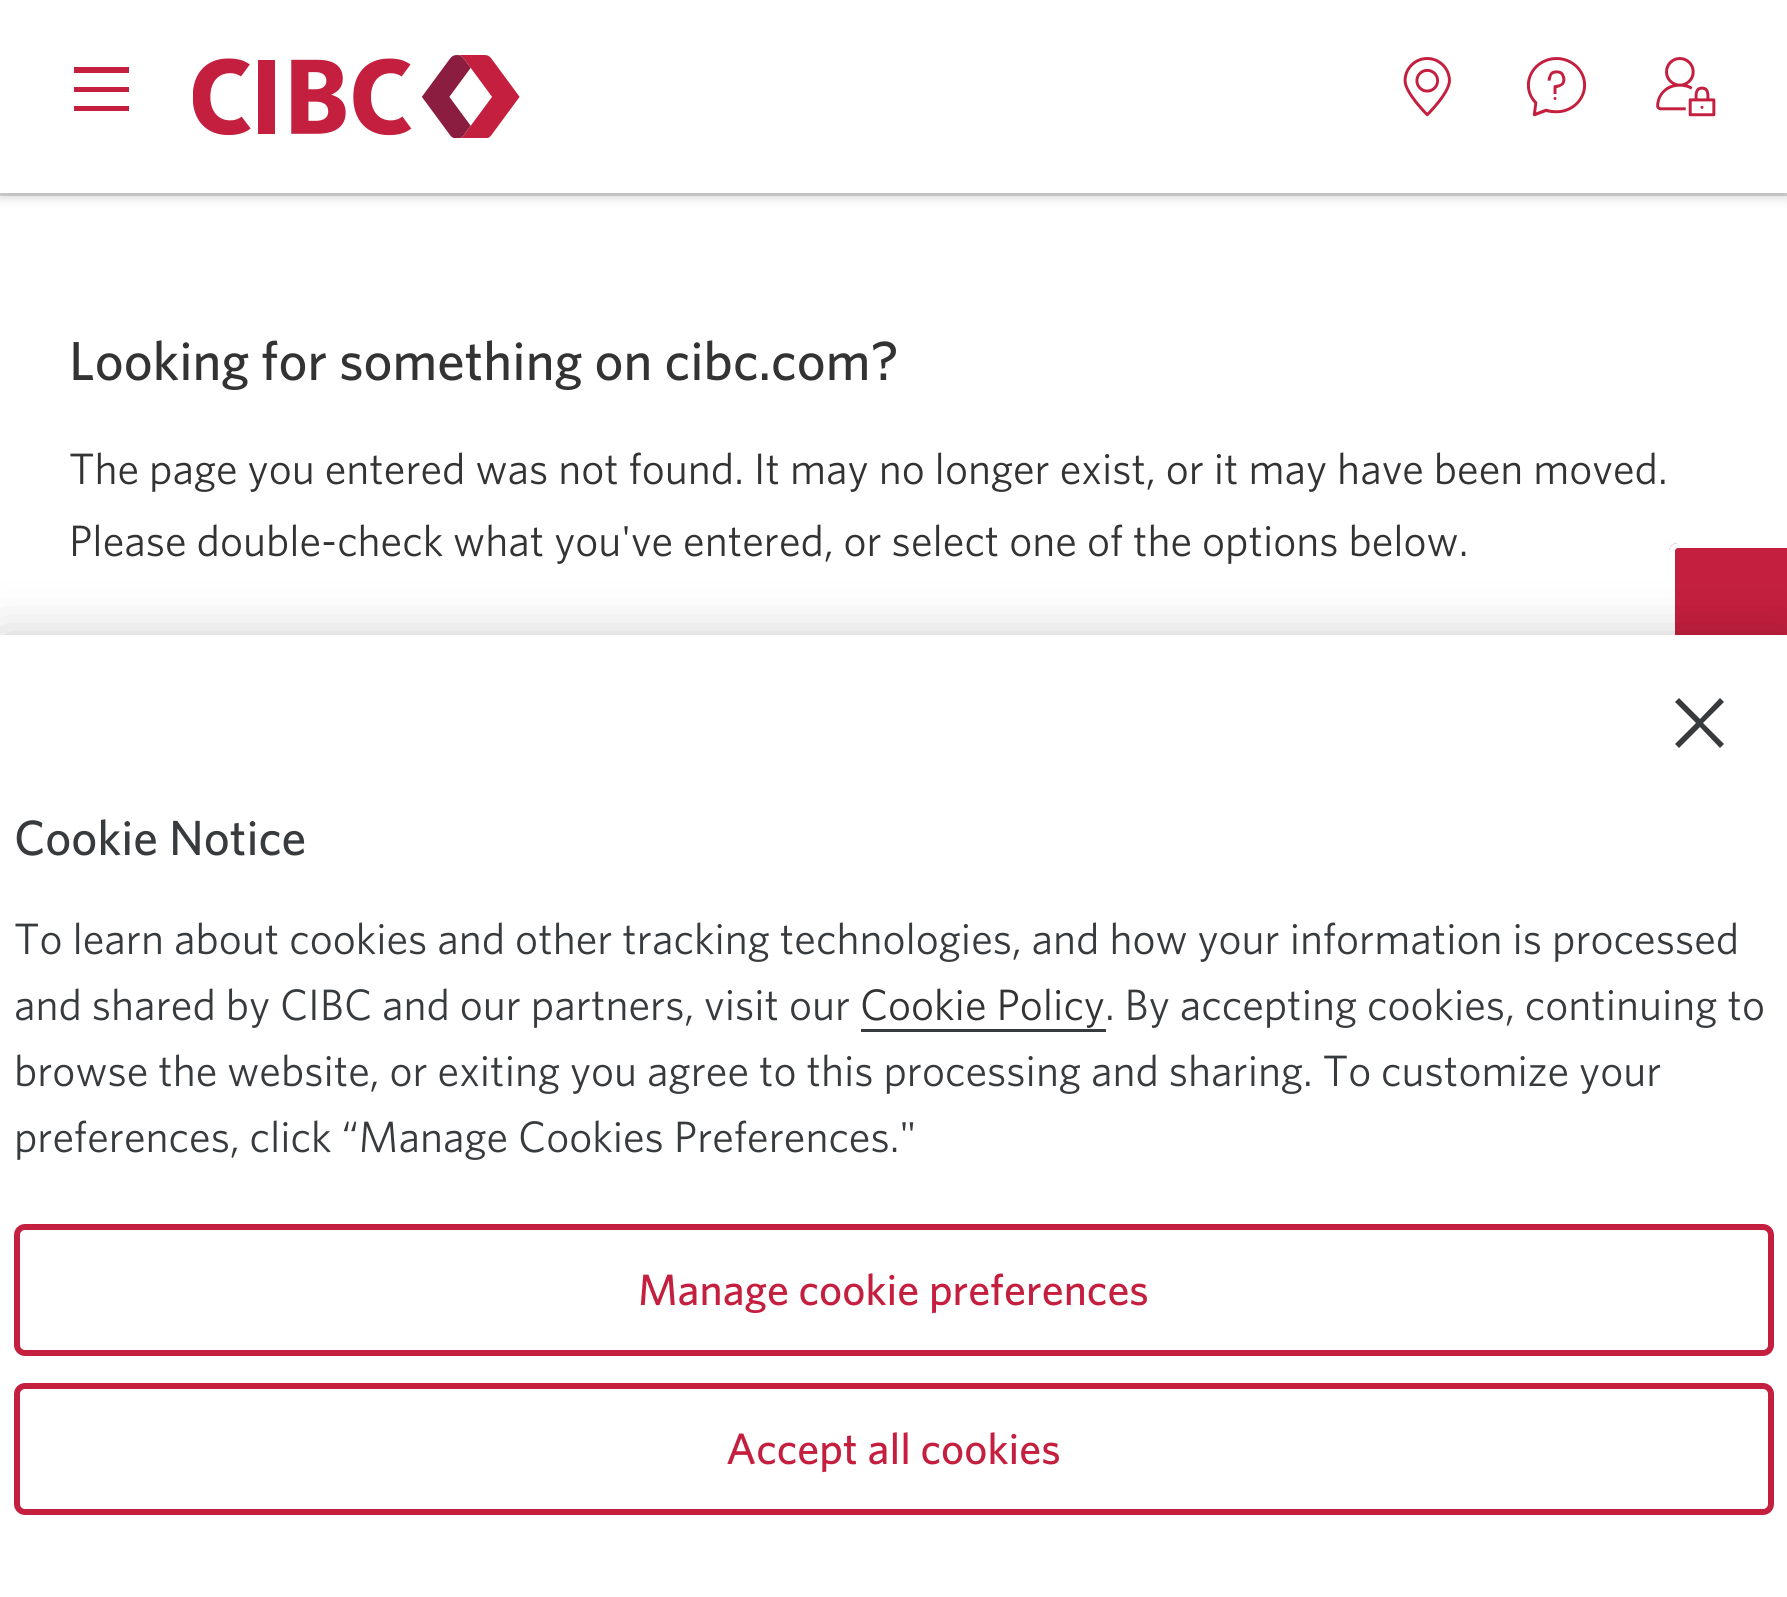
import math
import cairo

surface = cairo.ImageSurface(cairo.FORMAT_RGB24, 1787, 1597)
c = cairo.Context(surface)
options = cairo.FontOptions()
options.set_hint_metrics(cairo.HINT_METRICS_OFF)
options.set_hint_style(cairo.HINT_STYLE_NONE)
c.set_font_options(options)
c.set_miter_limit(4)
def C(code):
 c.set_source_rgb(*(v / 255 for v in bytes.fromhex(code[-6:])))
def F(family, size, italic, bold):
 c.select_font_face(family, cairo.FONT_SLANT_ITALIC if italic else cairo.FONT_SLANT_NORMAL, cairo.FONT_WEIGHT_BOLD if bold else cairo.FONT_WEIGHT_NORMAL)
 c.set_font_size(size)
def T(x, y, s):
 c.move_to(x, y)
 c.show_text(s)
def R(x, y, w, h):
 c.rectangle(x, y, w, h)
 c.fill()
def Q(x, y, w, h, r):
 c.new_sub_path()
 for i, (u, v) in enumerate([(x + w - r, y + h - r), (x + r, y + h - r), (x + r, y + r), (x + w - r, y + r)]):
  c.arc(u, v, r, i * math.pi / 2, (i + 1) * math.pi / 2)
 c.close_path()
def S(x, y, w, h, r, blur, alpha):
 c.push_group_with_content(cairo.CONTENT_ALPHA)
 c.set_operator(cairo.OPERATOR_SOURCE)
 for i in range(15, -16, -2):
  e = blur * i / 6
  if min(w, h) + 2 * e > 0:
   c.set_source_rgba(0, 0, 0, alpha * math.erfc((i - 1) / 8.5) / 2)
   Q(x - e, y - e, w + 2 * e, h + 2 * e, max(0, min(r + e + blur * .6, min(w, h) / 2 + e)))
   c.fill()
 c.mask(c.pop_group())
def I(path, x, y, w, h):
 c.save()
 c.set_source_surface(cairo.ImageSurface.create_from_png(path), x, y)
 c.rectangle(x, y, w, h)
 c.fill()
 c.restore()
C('ffffff')
c.paint()
C('dcdcdc')
R(0,193,1787,3)
C('000000')
S(0,6,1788,192,0,5.5,.15)
C('ffffff')
R(0,0,1787,193)
C('c41f3e')
c.new_path()
c.move_to(74,67)
c.line_to(129,67)
c.line_to(129,73)
c.line_to(74,73)
c.close_path()
c.move_to(74,87)
c.line_to(129,87)
c.line_to(129,92)
c.line_to(74,92)
c.close_path()
c.move_to(74,106)
c.line_to(129,106)
c.line_to(129,111)
c.line_to(74,111)
c.close_path()
c.fill()
I('1.png',193,55,327,83)
I('2.png',1403,57,48,60)
I('3.png',1526,57,61,60)
I('4.png',1656,57,60,60)
F('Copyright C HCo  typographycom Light',55,0,0)
C('333333')
T(69,380,'Looking for something on cibc.com?')
F('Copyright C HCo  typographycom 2 Light',44,0,0)
T(69,484,'The page you entered was not found. It may no longer exist, or it may have been moved.')
T(69,556,'Please double-check what you\'ve entered, or select one of the options below.')
C('c41f3e')
c.new_path()
c.move_to(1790,543)
c.line_to(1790,856)
c.line_to(1678,856)
c.curve_to(1673,856,1669,853,1669,848)
c.line_to(1669,551)
c.curve_to(1669,547,1673,543,1678,543)
c.close_path()
c.fill()
C('ffffff')
c.set_fill_rule(cairo.FILL_RULE_EVEN_ODD)
c.new_path()
c.move_to(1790,543)
c.line_to(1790,856)
c.line_to(1678,856)
c.curve_to(1673,856,1669,853,1669,848)
c.line_to(1669,551)
c.curve_to(1669,547,1673,543,1678,543)
c.close_path()
c.move_to(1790,548)
c.line_to(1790,851)
c.line_to(1678,851)
c.curve_to(1676,851,1675,850,1675,848)
c.line_to(1675,551)
c.curve_to(1675,550,1676,548,1678,548)
c.close_path()
c.fill()
C('000000')
S(0,635,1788,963,0,25,.2)
C('ffffff')
R(0,635,1787,962)
C('383b3e')
c.set_fill_rule(cairo.FILL_RULE_WINDING)
c.new_path()
c.move_to(1675,744)
c.line_to(1696,723)
c.line_to(1675,702)
c.line_to(1679,698)
c.line_to(1700,719)
c.line_to(1720,698)
c.line_to(1724,702)
c.line_to(1703,723)
c.line_to(1724,744)
c.line_to(1720,748)
c.line_to(1700,727)
c.line_to(1679,748)
c.close_path()
c.fill()
F('Copyright C HCo  typographycom Light',49.5,0,0)
T(14,855,'Cookie Notice')
F('Copyright C HCo  typographycom 2 Light',44,0,0)
T(14,954,'To learn about cookies and other tracking technologies, and how your information is processed')
T(14,1020,'and shared by CIBC and our partners, visit our')
C('333333')
T(860,1020,'Cookie Policy')
C('383b3e')
R(861,1029,245,3)
T(1105,1020,'. By accepting cookies, continuing to')
T(14,1086,'browse the website, or exiting you agree to this processing and sharing. To customize your')
T(14,1152,'preferences, click “Manage Cookies Preferences."')
Q(17,1227,1754,126,8)
C('c41f3e')
c.set_line_width(6)
c.stroke()
F('Copyright C HCo  typographycom Light',44,0,0)
T(638,1305,'Manage cookie preferences')
Q(17,1386,1754,126,8)
c.stroke()
T(726,1464,'Accept all cookies')
surface.write_to_png('o.png')
